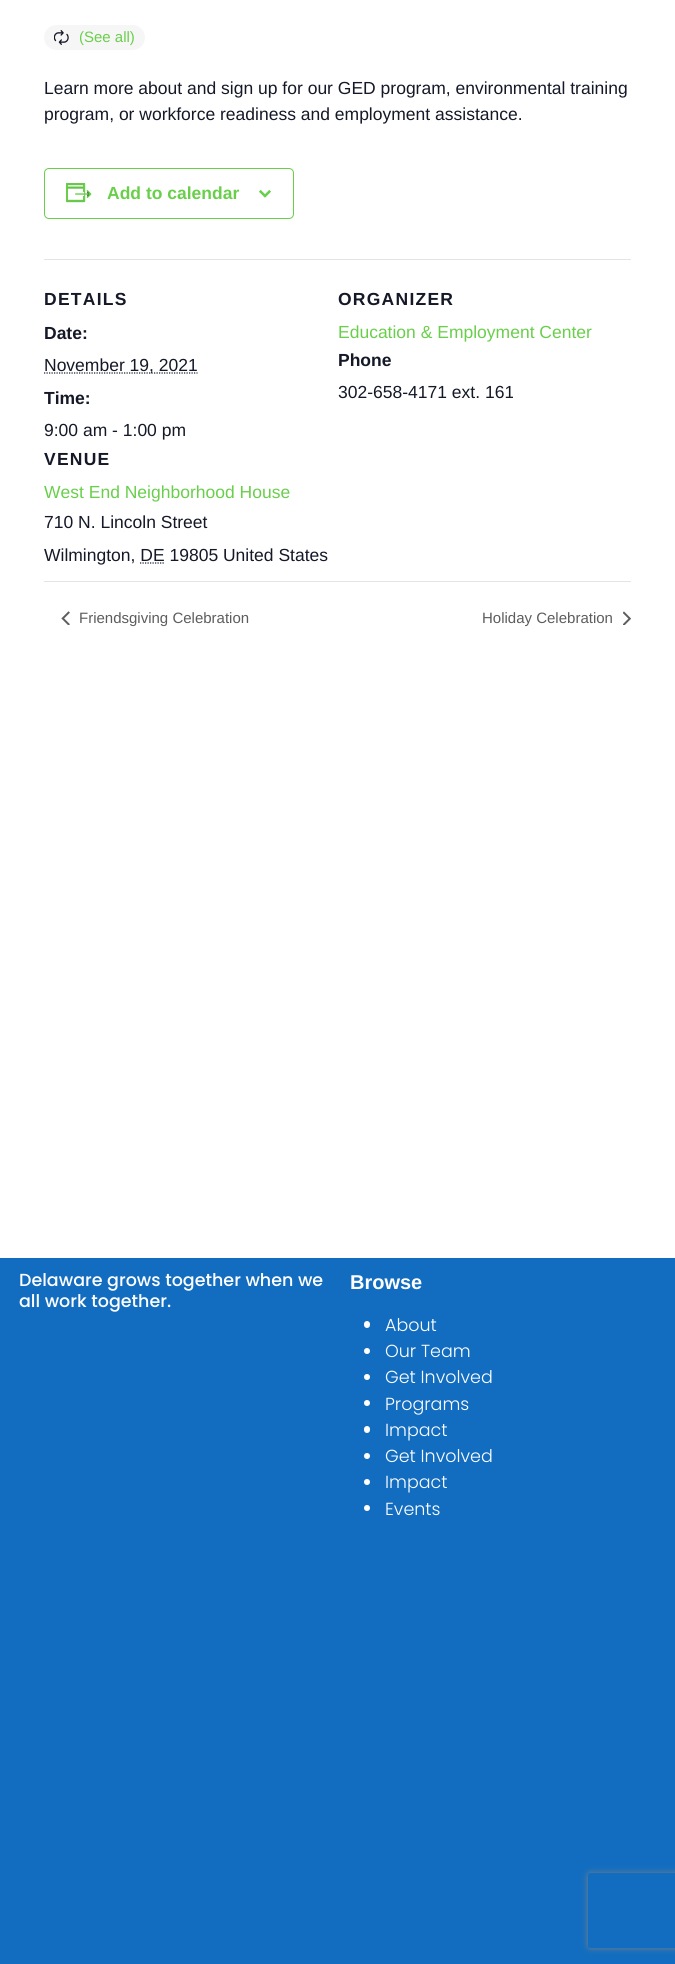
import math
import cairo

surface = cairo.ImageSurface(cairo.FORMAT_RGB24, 675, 1964)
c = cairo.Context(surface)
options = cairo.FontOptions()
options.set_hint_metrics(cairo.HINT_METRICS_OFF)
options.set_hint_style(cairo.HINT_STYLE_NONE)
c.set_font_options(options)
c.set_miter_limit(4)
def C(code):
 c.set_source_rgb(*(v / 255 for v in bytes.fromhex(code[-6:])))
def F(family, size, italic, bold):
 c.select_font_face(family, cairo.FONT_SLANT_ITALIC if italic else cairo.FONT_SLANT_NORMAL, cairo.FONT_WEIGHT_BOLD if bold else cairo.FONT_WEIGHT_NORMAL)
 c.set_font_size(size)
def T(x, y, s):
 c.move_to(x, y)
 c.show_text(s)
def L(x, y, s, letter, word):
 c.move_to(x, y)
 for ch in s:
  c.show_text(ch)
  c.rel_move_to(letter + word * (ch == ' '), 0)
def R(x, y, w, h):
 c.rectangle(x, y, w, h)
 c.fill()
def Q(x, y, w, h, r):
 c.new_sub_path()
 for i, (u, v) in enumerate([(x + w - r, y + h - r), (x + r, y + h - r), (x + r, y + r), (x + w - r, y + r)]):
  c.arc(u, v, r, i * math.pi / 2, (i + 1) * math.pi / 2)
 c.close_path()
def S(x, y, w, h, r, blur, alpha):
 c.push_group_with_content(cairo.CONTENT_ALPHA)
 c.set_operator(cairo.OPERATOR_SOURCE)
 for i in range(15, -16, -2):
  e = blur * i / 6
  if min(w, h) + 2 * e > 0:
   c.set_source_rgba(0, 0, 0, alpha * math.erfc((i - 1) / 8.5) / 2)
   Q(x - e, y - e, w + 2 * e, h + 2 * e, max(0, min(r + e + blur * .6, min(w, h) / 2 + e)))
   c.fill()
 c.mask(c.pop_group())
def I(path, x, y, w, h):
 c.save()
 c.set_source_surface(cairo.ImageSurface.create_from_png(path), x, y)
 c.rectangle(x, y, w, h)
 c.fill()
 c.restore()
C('ffffff')
c.paint()
C('f7f6f6')
Q(44,25,101,25,12.5)
c.fill()
I('1.png',54,30,15,15)
F('Liberation Sans',15,0,0)
C('69cf4b')
T(79,42,'(See all)')
F('Liberation Sans',17.5,0,0)
C('141827')
T(44,94,'Learn more about and sign up for our GED program, environmental training')
T(44,120,'program, or workforce readiness and employment assistance.')
Q(44.5,168.5,249,50,4.5)
C('69cf4b')
c.set_line_width(1)
c.stroke()
I('2.png',66,183,26,20)
F('Liberation Sans',17.5,0,1)
T(107,199,'Add to calendar')
I('3.png',259,190,12,8)
C('e4e4e4')
R(44,259,587,1)
C('141827')
L(44,305,'DETAILS',1.25,0)
T(44,339,'Date:')
c.new_path()
c.move_to(44,373)
c.line_to(197.5,373)
c.set_line_width(1.2)
c.set_dash([1.25,1.25])
c.stroke()
F('Liberation Sans',17.5,0,0)
T(44,371,'November 19, 2021')
F('Liberation Sans',17.5,0,1)
T(44,404,'Time:')
F('Liberation Sans',17.5,0,0)
T(44,436,'9:00 am - 1:00 pm')
F('Liberation Sans',17.5,0,1)
L(338,305,'ORGANIZER',1.25,0)
F('Liberation Sans',17.5,0,0)
C('69cf4b')
T(338,338,'Education & Employment Center')
F('Liberation Sans',17.5,0,1)
C('141827')
T(338,366,'Phone')
F('Liberation Sans',17.5,0,0)
T(338,398,'302-658-4171 ext. 161')
F('Liberation Sans',17.5,0,1)
L(44,465,'VENUE',1.25,0)
F('Liberation Sans',17.5,0,0)
C('69cf4b')
T(44,498,'West End Neighborhood House')
C('141827')
T(44,528,'710 N. Lincoln Street')
T(44,561,'Wilmington, DE 19805 United States')
c.new_path()
c.move_to(140,563)
c.line_to(164.5,563)
c.stroke()
C('e4e4e4')
R(44,581,587,1)
I('4.png',61,611,9,14)
F('Liberation Sans',15,0,0)
C('5d5d5d')
T(79,623,'Friendsgiving Celebration')
T(482,623,'Holiday Celebration')
I('5.png',623,611,8,14)
C('126dc0')
R(0,1258,675,706)
F('Poppins Medium',17.5,0,0)
C('ffffff')
T(19,1286,'Delaware grows together when we')
T(19,1307,'all work together.')
F('Liberation Sans',20,0,1)
T(350,1289,'Browse')
Q(364,1321,6,7,3)
c.fill()
F('Poppins Light',17.5,0,0)
T(385,1331,'About')
c.new_path()
c.arc(367,1351,3,0,2 * math.pi)
c.fill()
T(385,1357,'Our Team')
c.new_path()
c.arc(367,1377,3,0,2 * math.pi)
c.fill()
T(385,1383,'Get Involved')
c.new_path()
c.arc(367,1403,3,0,2 * math.pi)
c.fill()
T(385,1410,'Programs')
Q(364,1426,6,7,3)
c.fill()
T(385,1436,'Impact')
c.new_path()
c.arc(367,1456,3,0,2 * math.pi)
c.fill()
T(385,1462,'Get Involved')
c.new_path()
c.arc(367,1482,3,0,2 * math.pi)
c.fill()
T(385,1488,'Impact')
c.new_path()
c.arc(367,1508,3,0,2 * math.pi)
c.fill()
T(385,1515,'Events')
c.save()
c.set_fill_rule(cairo.FILL_RULE_EVEN_ODD)
c.new_path()
c.move_to(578,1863)
c.line_to(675,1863)
c.line_to(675,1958)
c.line_to(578,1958)
c.close_path()
c.move_to(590.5,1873)
c.line_to(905.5,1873)
c.curve_to(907,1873,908,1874,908,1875.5)
c.line_to(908,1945.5)
c.curve_to(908,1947,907,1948,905.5,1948)
c.line_to(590.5,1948)
c.curve_to(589,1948,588,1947,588,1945.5)
c.line_to(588,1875.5)
c.curve_to(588,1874,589,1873,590.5,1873)
c.close_path()
c.clip()
C('808080')
S(588,1873,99,75,2.5,3,1)
c.restore()
surface.write_to_png('o.png')
